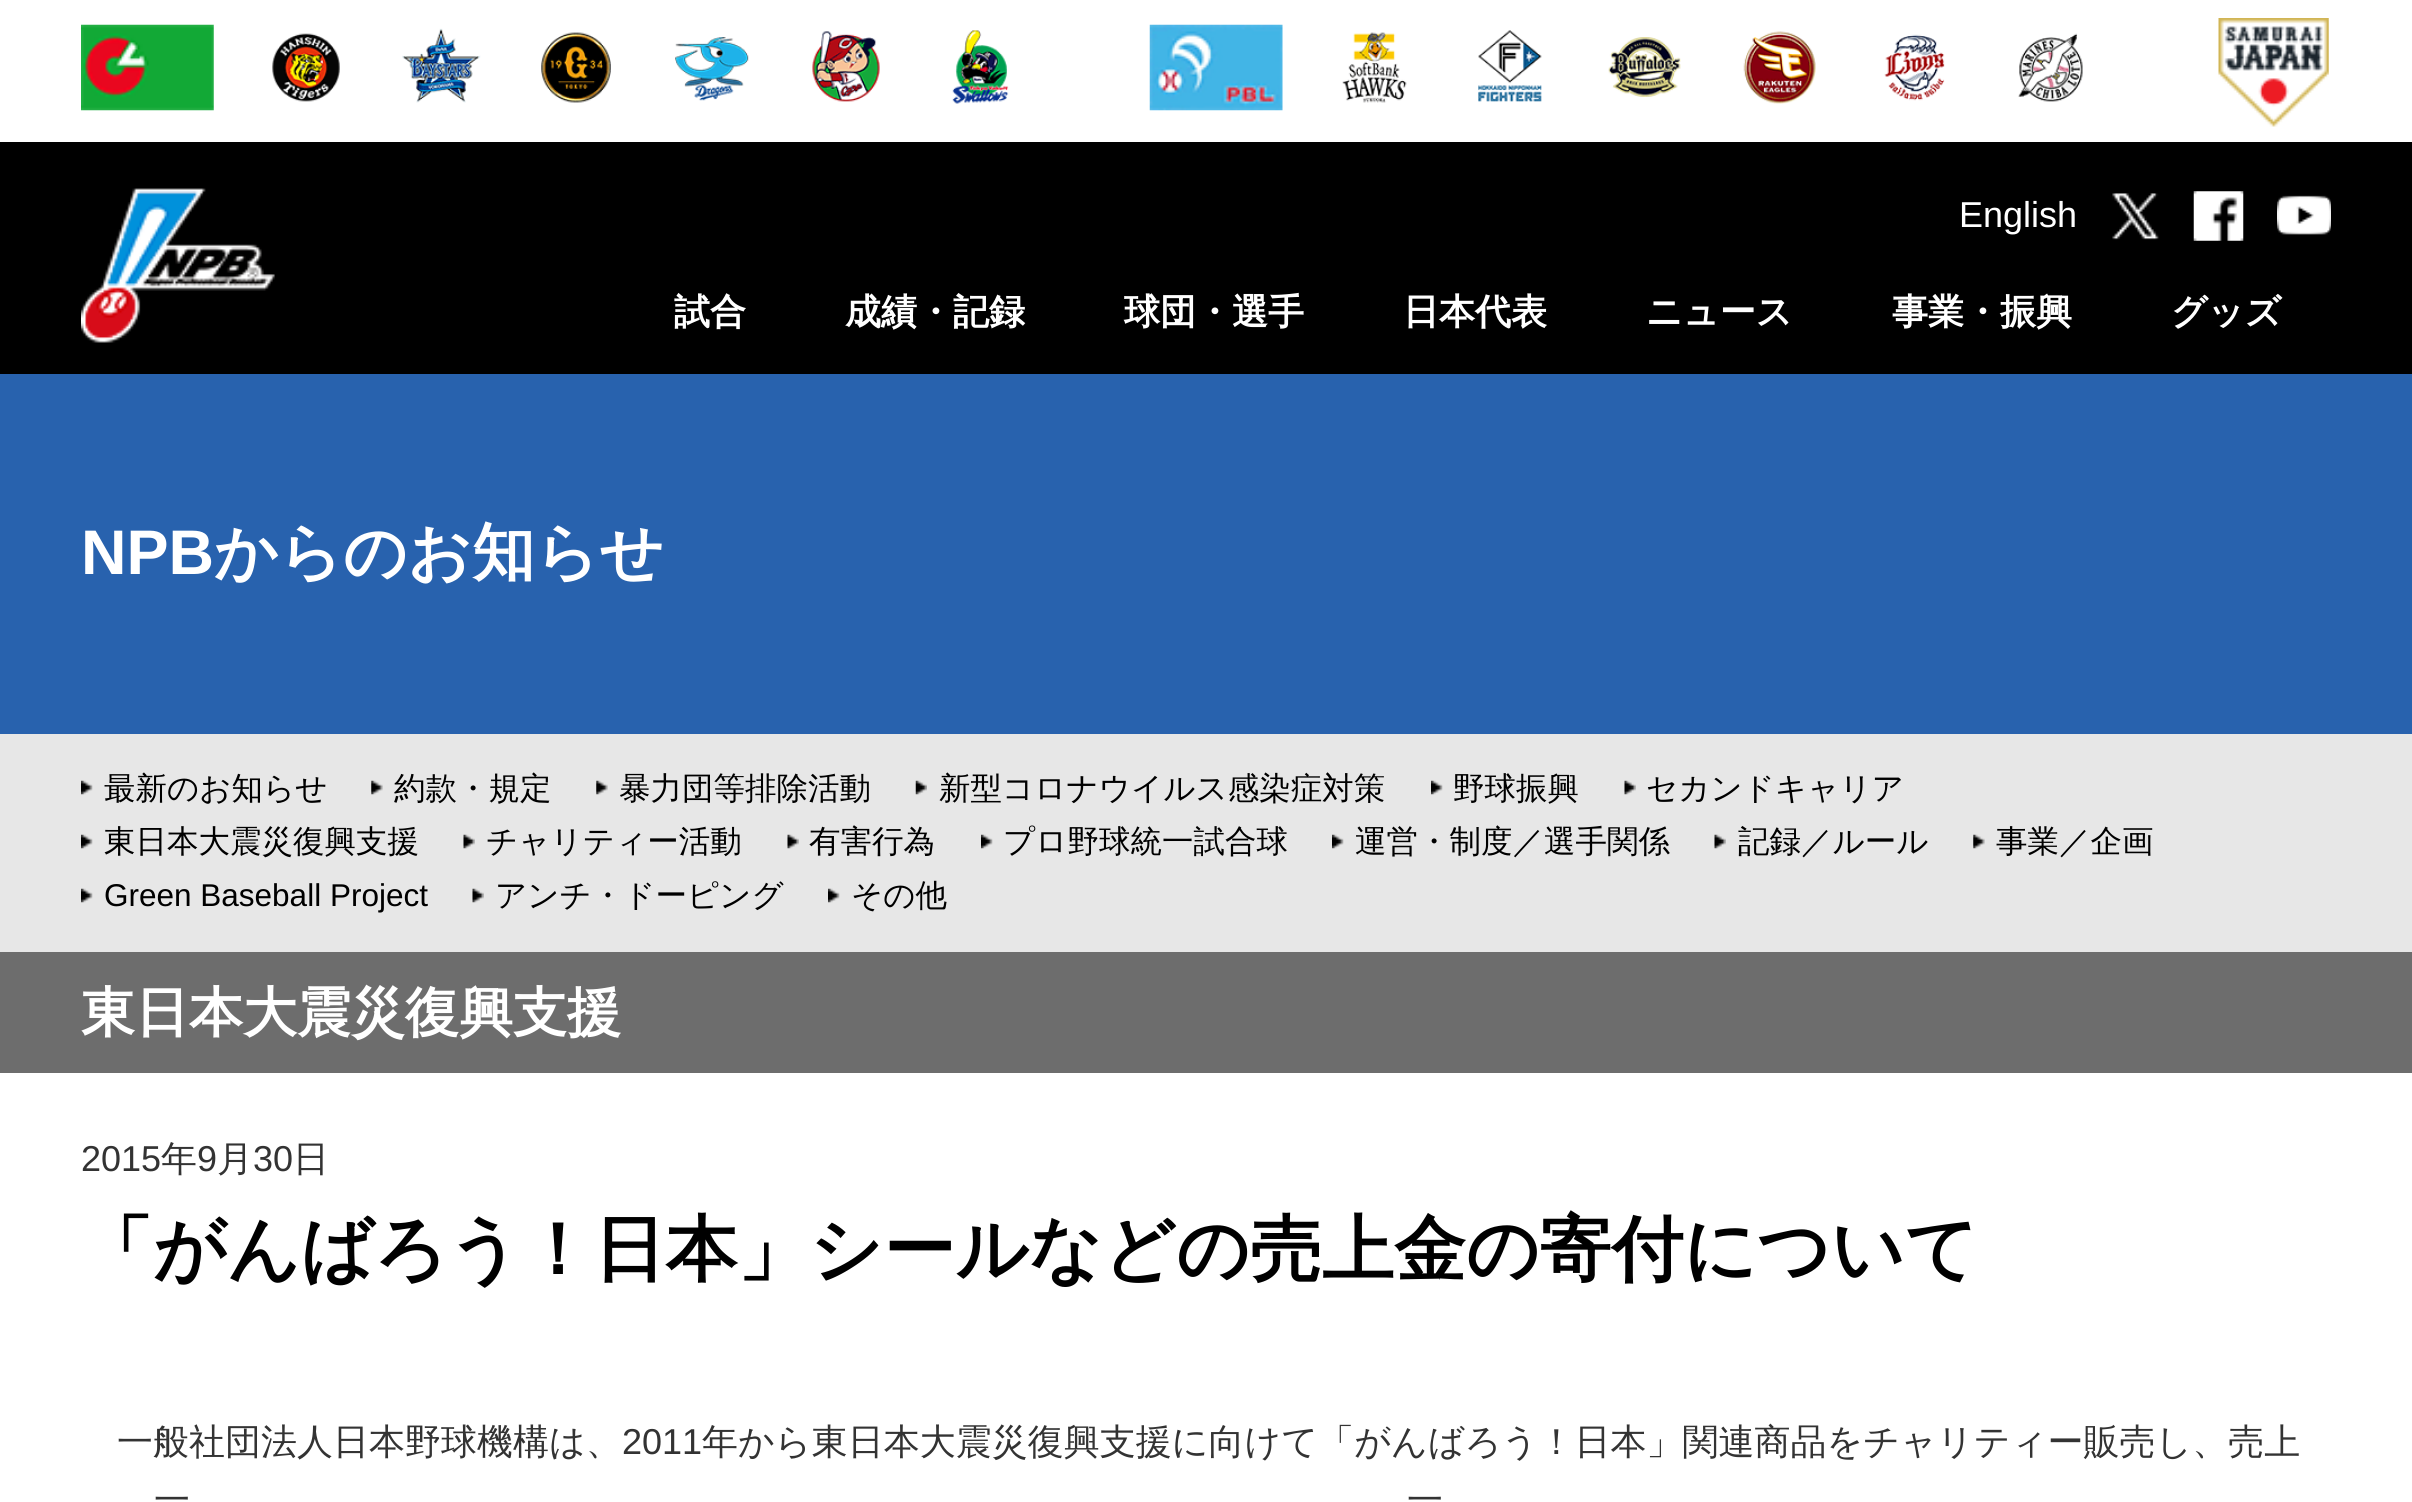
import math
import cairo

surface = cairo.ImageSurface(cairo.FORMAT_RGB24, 2412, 1502)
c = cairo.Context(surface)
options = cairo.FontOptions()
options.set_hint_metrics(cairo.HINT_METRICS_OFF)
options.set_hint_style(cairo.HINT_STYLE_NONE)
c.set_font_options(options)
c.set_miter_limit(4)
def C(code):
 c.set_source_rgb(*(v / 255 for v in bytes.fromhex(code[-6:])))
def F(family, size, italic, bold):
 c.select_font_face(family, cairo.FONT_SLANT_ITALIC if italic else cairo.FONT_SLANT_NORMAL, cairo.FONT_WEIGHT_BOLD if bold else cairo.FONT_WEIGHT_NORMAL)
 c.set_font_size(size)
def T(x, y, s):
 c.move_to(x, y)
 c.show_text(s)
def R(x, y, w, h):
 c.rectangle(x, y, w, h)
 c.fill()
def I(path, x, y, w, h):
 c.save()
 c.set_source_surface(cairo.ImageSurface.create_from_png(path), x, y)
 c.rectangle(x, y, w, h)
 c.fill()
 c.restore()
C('ffffff')
c.paint()
I('1.png',81,24,133,87)
I('2.png',272,33,68,69)
I('3.png',402,28,79,75)
I('4.png',541,32,70,71)
I('5.png',675,37,74,64)
I('6.png',812,31,68,71)
I('7.png',952,30,57,74)
I('8.png',1149,24,134,87)
I('9.png',1342,32,65,71)
I('10.png',1478,30,64,72)
I('11.png',1608,37,73,60)
I('12.png',1743,31,73,73)
I('13.png',1884,34,61,67)
I('14.png',2018,33,65,69)
I('15.png',2218,18,111,109)
C('000000')
R(0,142,2412,232)
I('16.png',81,188,194,155)
F('Liberation Sans',36,0,0)
C('ffffff')
T(1959,227,'English')
I('17.png',2112,193,47,47)
I('18.png',2193,191,51,50)
I('19.png',2277,195,54,40)
F('WenQuanYi Zen Hei',36,0,1)
T(674,324,'試合')
T(845,324,'成績・記録')
T(1124,324,'球団・選手')
T(1403,324,'日本代表')
T(1646,324,'ニュース')
T(1892,324,'事業・振興')
T(2171,324,'グッズ')
C('2862ae')
R(0,374,2412,360)
F('Liberation Sans',63,0,1)
C('ffffff')
T(81,574,'NPB')
F('WenQuanYi Zen Hei',63,0,1)
T(214,574,'からのお知らせ')
C('e7e7e7')
R(0,734,2412,218)
I('20.png',81,780,12,15)
F('WenQuanYi Zen Hei Medium',31.5,0,0)
C('000000')
T(104,799,'最新のお知らせ')
I('21.png',371,780,12,15)
T(394,799,'約款・規定')
I('21.png',596,780,12,15)
T(619,799,'暴力団等排除活動')
I('22.png',915,780,12,15)
T(939,799,'新型コロナウイルス感染症対策')
I('20.png',1431,780,12,15)
T(1453,799,'野球振興')
I('23.png',1624,780,12,15)
T(1646,799,'セカンドキャリア')
I('20.png',81,834,12,15)
T(104,852,'東日本大震災復興支援')
I('23.png',463,834,12,15)
T(486,852,'チャリティー活動')
I('24.png',787,834,12,15)
T(809,852,'有害行為')
I('20.png',981,834,12,15)
T(1003,852,'プロ野球統一試合球')
I('25.png',1332,834,12,15)
T(1355,852,'運営・制度／選手関係')
I('24.png',1714,834,12,15)
T(1738,852,'記録／ルール')
I('21.png',1973,834,12,15)
T(1996,852,'事業／企画')
I('20.png',81,888,12,15)
F('Liberation Sans',31.5,0,0)
T(104,906,'Green Baseball Project')
I('23.png',472,888,12,15)
F('WenQuanYi Zen Hei Medium',31.5,0,0)
T(495,906,'アンチ・ドーピング')
I('20.png',828,888,12,15)
T(851,906,'その他')
C('6d6d6d')
R(0,952,2412,121)
F('WenQuanYi Zen Hei',54,0,1)
C('ffffff')
T(81,1031,'東日本大震災復興支援')
F('Liberation Sans',36,0,0)
C('333333')
T(81,1171,'2015')
F('WenQuanYi Zen Hei Medium',36,0,0)
T(161,1171,'年')
F('Liberation Sans',36,0,0)
T(197,1171,'9')
F('WenQuanYi Zen Hei Medium',36,0,0)
T(217,1171,'月')
F('Liberation Sans',36,0,0)
T(253,1171,'30')
F('WenQuanYi Zen Hei Medium',36,0,0)
T(293,1171,'日')
F('WenQuanYi Zen Hei',72,0,1)
C('000000')
T(81,1274,'「がんばろう！日本」シールなどの売上金の寄付について')
F('WenQuanYi Zen Hei Medium',36,0,0)
C('333333')
T(117,1454,'一般社団法人日本野球機構は、')
F('Liberation Sans',36,0,0)
T(622,1454,'2011')
F('WenQuanYi Zen Hei Medium',36,0,0)
T(702,1454,'年から東日本大震災復興支援に向けて「がんばろう！日本」関連商品をチャリティー販売し、売上')
T(154,1512,'一')
T(1407,1512,'一')
surface.write_to_png('o.png')
